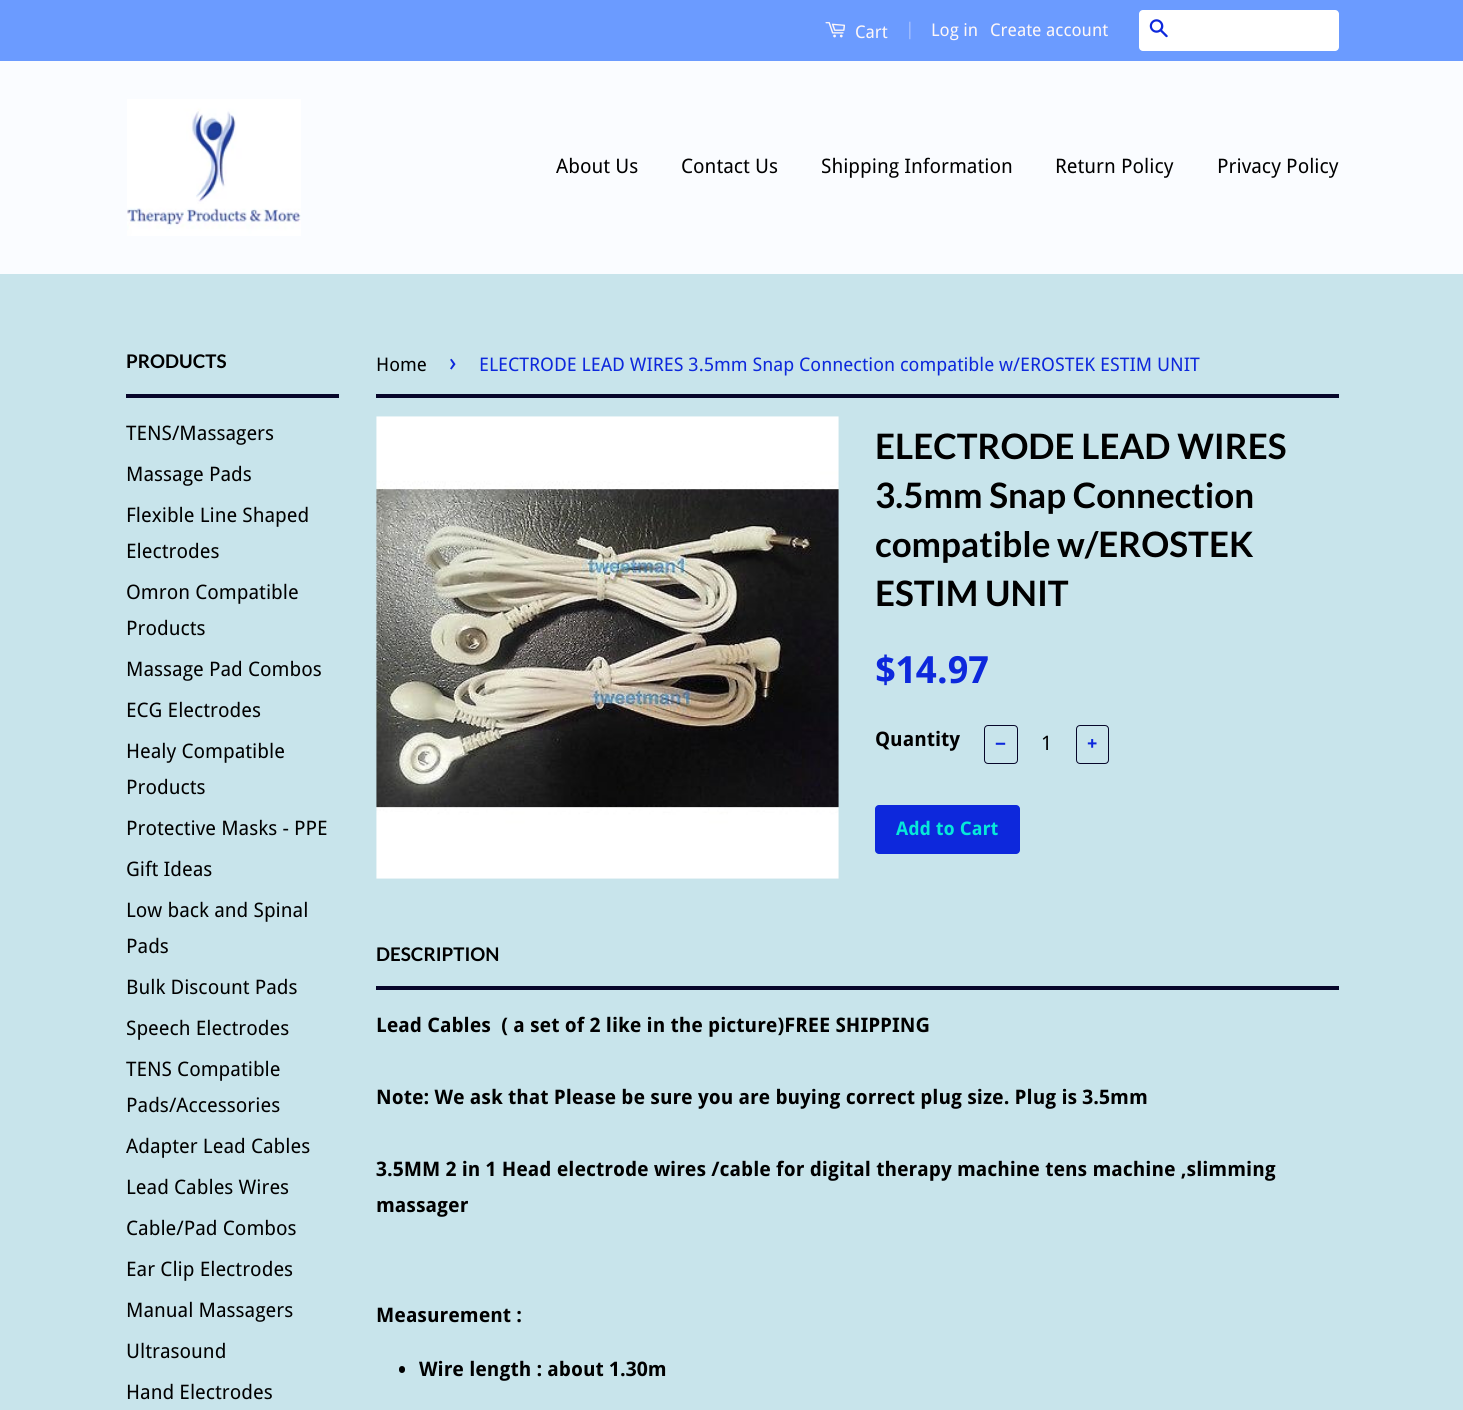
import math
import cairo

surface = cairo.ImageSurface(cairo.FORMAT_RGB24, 1463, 1410)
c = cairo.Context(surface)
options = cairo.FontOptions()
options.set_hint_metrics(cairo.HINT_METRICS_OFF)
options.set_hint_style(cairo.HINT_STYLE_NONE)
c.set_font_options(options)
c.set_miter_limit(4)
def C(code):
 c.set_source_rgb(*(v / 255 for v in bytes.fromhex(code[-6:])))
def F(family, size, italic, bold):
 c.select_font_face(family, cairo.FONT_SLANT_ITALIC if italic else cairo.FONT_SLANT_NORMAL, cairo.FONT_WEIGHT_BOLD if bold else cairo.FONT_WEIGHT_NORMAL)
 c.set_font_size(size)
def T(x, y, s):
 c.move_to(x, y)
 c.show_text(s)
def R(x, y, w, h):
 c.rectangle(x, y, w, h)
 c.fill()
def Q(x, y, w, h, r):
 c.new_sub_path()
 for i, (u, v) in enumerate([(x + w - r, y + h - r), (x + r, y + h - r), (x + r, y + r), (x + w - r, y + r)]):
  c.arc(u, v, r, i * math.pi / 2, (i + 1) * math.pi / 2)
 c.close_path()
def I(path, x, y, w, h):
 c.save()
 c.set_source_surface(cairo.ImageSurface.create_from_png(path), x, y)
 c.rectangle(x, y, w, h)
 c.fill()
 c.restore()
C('c8e4eb')
c.paint()
C('6b9bff')
R(0,0,1463,61)
I('1.png',825,22,20,16)
F('Droid Sans',17.5,0,0)
C('fef7f7')
T(855,38,'Cart')
C('a6c0fc')
T(905,35,'|')
C('fef7f7')
T(931,36,'Log in')
T(990,36,'Create account')
C('ffffff')
Q(1139,10,200,41,4)
c.fill()
I('2.png',1149,19,19,19)
C('fafcff')
R(0,61,1463,213)
I('3.png',127,99,174,137)
F('Droid Sans',20,0,0)
C('000000')
T(556,173,'About Us')
T(681,173,'Contact Us')
T(821,173,'Shipping Information')
T(1055,173,'Return Policy')
T(1217,173,'Privacy Policy')
C('07062a')
R(126,394,213,4)
F('Lato',18.75,0,1)
C('000000')
T(126,368,'PRODUCTS')
F('Droid Sans',20,0,0)
T(126,440,'TENS/Massagers')
T(126,481,'Massage Pads')
T(126,522,'Flexible Line Shaped')
T(126,558,'Electrodes')
T(126,599,'Omron Compatible')
T(126,635,'Products')
T(126,676,'Massage Pad Combos')
T(126,717,'ECG Electrodes')
T(126,758,'Healy Compatible')
T(126,794,'Products')
T(126,835,'Protective Masks - PPE')
T(126,876,'Gift Ideas')
T(126,917,'Low back and Spinal')
T(126,953,'Pads')
T(126,994,'Bulk Discount Pads')
T(126,1035,'Speech Electrodes')
T(126,1076,'TENS Compatible')
T(126,1112,'Pads/Accessories')
T(126,1153,'Adapter Lead Cables')
T(126,1194,'Lead Cables Wires')
T(126,1235,'Cable/Pad Combos')
T(126,1276,'Ear Clip Electrodes')
T(126,1317,'Manual Massagers')
T(126,1358,'Ultrasound')
T(126,1399,'Hand Electrodes')
C('07062a')
R(376,394,963,4)
F('Droid Sans',18.75,0,0)
C('000000')
T(376,371,'Home')
F('Droid Sans',26,0,0)
C('0d28dc')
T(449,371,'›')
F('Droid Sans',18.75,0,0)
T(479,371,'ELECTRODE LEAD WIRES 3.5mm Snap Connection compatible w/EROSTEK ESTIM UNIT')
I('4.png',376,416,463,463)
F('Lato',35,0,1)
C('000000')
T(875,459,'ELECTRODE LEAD WIRES')
T(875,508,'3.5mm Snap Connection')
T(875,557,'compatible w/EROSTEK')
T(875,606,'ESTIM UNIT')
F('Droid Sans',37.5,0,1)
C('0d28dc')
T(875,683,'$14.97')
F('Droid Sans',20,0,1)
C('000000')
T(875,746,'Quantity')
Q(984.5,725.5,33,38,3.5)
C('07062a')
c.set_line_width(1)
c.stroke()
F('Liberation Sans',18.75,0,1)
C('0d28dc')
T(995,750,'−')
F('Droid Sans',20,0,0)
C('000000')
T(1041,750,'1')
Q(1076.5,725.5,32,38,3.5)
C('07062a')
c.stroke()
F('Droid Sans',18.75,0,1)
C('0d28dc')
T(1087,750,'+')
Q(875,805,145,49,4)
c.fill()
C('06e8d9')
T(896,835,'Add to Cart')
C('07062a')
R(376,986,963,4)
F('Lato',18.75,0,1)
C('000000')
T(376,961,'DESCRIPTION')
F('Droid Sans',20,0,1)
T(376,1032,'Lead Cables  ( a set of 2 like in the picture)FREE SHIPPING')
T(376,1104,'Note: We ask that Please be sure you are buying correct plug size. Plug is 3.5mm')
T(376,1176,'3.5MM 2 in 1 Head electrode wires /cable for digital therapy machine tens machine ,slimming')
T(376,1212,'massager')
T(376,1322,'Measurement :')
Q(399,1366,6,7,3)
c.fill()
T(419,1376,'Wire length : about 1.30m')
surface.write_to_png('o.png')
